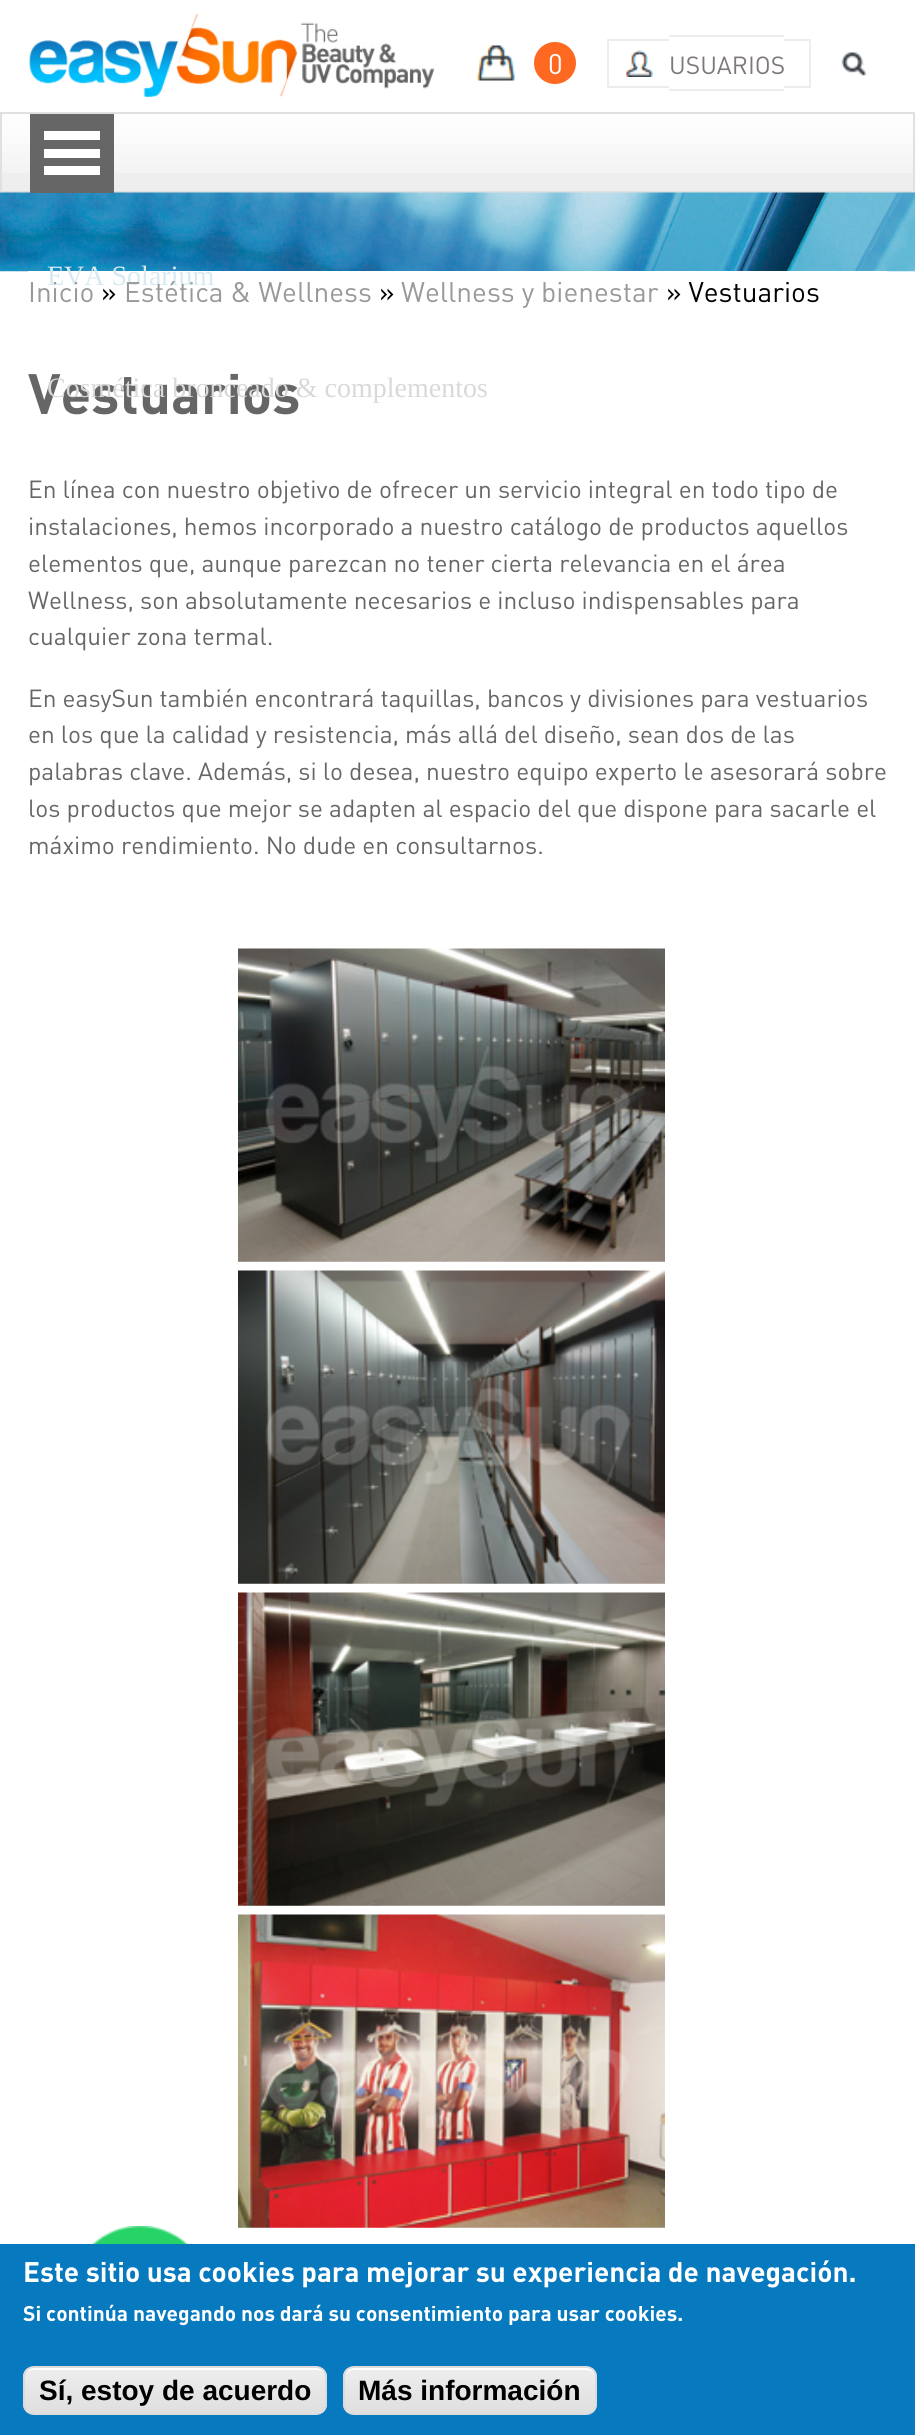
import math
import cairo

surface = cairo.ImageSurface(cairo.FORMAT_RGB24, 915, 2435)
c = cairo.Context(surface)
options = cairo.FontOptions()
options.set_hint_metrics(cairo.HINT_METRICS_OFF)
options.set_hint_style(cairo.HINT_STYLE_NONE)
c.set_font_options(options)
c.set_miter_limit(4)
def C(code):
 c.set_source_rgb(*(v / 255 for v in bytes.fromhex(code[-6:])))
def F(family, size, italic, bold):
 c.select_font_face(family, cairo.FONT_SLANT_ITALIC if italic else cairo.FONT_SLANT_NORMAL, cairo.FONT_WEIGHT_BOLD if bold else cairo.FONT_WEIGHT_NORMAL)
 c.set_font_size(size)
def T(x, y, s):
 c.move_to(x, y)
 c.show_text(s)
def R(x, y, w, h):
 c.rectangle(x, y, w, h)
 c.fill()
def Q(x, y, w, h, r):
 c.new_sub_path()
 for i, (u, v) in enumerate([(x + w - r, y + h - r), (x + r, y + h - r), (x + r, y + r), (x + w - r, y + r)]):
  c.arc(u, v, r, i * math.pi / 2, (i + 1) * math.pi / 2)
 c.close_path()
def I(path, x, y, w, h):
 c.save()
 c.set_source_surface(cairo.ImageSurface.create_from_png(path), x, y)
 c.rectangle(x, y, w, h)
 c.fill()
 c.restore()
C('ffffff')
c.paint()
I('1.png',29,14,406,83)
I('2.png',477,45,38,36)
C('ff6821')
c.arc(555,63,21,0,2 * math.pi)
c.fill()
F('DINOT',28,0,0)
C('ffffff')
T(548,74,'0')
I('3.png',626,50,27,27)
C('ededed')
R(607,39,62,2)
R(607,86,62,2)
R(607,39,2,49)
R(669,35,115,2)
R(669,89,115,2)
R(784,39,26,2)
R(809,39,2,49)
R(784,86,26,2)
F('DINOT',24.5,0,0)
C('7e7878')
T(669,74,'USUARIOS')
I('4.png',841,52,26,24)
C('eeeeee')
R(2,173,911,18)
I('6.png',2,114,911,59)
c.rectangle(1,113,913,79)
C('e0e0e0')
c.stroke()
I('5.png',0,192,915,80)
C('666666')
R(30,114,84,79)
C('ffffff')
R(44,166,56,9)
R(44,149,56,9)
R(44,131,56,9)
R(28,271,859,1)
F('Liberation Serif',28,0,0)
C('d7eaf2')
T(47,285,'EVA Solarium')
F('DINOT',56,0,1)
C('666666')
T(28,414,'Vestuarios')
F('Liberation Serif',28,0,0)
C('d9d9d9')
T(47,397,'Cosmética bronceado & complementos')
F('DINOT',28,0,0)
C('999999')
T(28,302,'Inicio')
C('000000')
T(101,302,'»')
C('999999')
T(124,302,'Estética & Wellness')
C('000000')
T(379,302,'»')
C('999999')
T(401,302,'Wellness y bienestar')
C('000000')
T(666,302,'» Vestuarios')
F('DINOT',24.5,0,0)
C('666666')
T(28,498,'En línea con nuestro objetivo de ofrecer un servicio integral en todo tipo de')
T(28,535,'instalaciones, hemos incorporado a nuestro catálogo de productos aquellos')
T(28,572,'elementos que, aunque parezcan no tener cierta relevancia en el área')
T(28,609,'Wellness, son absolutamente necesarios e incluso indispensables para')
T(28,645,'cualquier zona termal.')
T(28,707,'En easySun también encontrará taquillas, bancos y divisiones para vestuarios')
T(28,743,'en los que la calidad y resistencia, más allá del diseño, sean dos de las')
T(28,780,'palabras clave. Además, si lo desea, nuestro equipo experto le asesorará sobre')
T(28,817,'los productos que mejor se adapten al espacio del que dispone para sacarle el')
T(28,854,'máximo rendimiento. No dude en consultarnos.')
I('7.png',238,948,427,314)
I('8.png',238,1270,427,314)
I('9.png',238,1592,427,314)
I('10.png',238,1914,427,314)
I('11.png',91,2226,98,18)
C('0779bf')
R(0,2244,915,191)
F('DINOT',28,0,1)
C('ffffff')
T(23,2282,'Este sitio usa cookies para mejorar su experiencia de navegación.')
F('DINOT',21,0,1)
T(23,2321,'Si continúa navegando nos dará su consentimiento para usar cookies.')
c.save()
Q(23,2366,304,49,11)
c.clip()
gradient = cairo.LinearGradient(175,2368,175,2413)
gradient.add_color_stop_rgba(.05,0.929,0.929,0.929,1)
gradient.add_color_stop_rgba(1,0.875,0.875,0.875,1)
c.set_source(gradient)
R(23,2368,304,45)
c.restore()
c.new_path()
c.move_to(33,2370)
c.line_to(317,2370)
c.curve_to(322,2370,326,2373,326,2378)
c.line_to(326,2377)
c.curve_to(326,2372,322,2368,317,2368)
c.line_to(34,2368)
c.curve_to(31,2368,28,2370,26,2373)
c.curve_to(28,2371,30,2370,33,2370)
c.close_path()
c.fill()
Q(24,2367,302,47,10)
C('dcdcdc')
c.stroke()
F('Liberation Sans',28,0,1)
C('000000')
T(39,2400,'Sí, estoy de acuerdo')
c.save()
Q(343,2366,254,49,11)
c.clip()
gradient = cairo.LinearGradient(470,2368,470,2413)
gradient.add_color_stop_rgba(.05,0.929,0.929,0.929,1)
gradient.add_color_stop_rgba(1,0.875,0.875,0.875,1)
c.set_source(gradient)
R(343,2368,254,45)
c.restore()
C('ffffff')
c.new_path()
c.move_to(354,2370)
c.line_to(586,2370)
c.curve_to(591,2370,595,2373,595,2378)
c.line_to(595,2377)
c.curve_to(595,2372,591,2368,586,2368)
c.line_to(354,2368)
c.curve_to(349,2368,345,2372,345,2377)
c.line_to(345,2378)
c.curve_to(345,2373,349,2370,354,2370)
c.close_path()
c.fill()
Q(344,2367,252,47,10)
C('dcdcdc')
c.stroke()
C('000000')
T(358,2400,'Más información')
surface.write_to_png('o.png')
